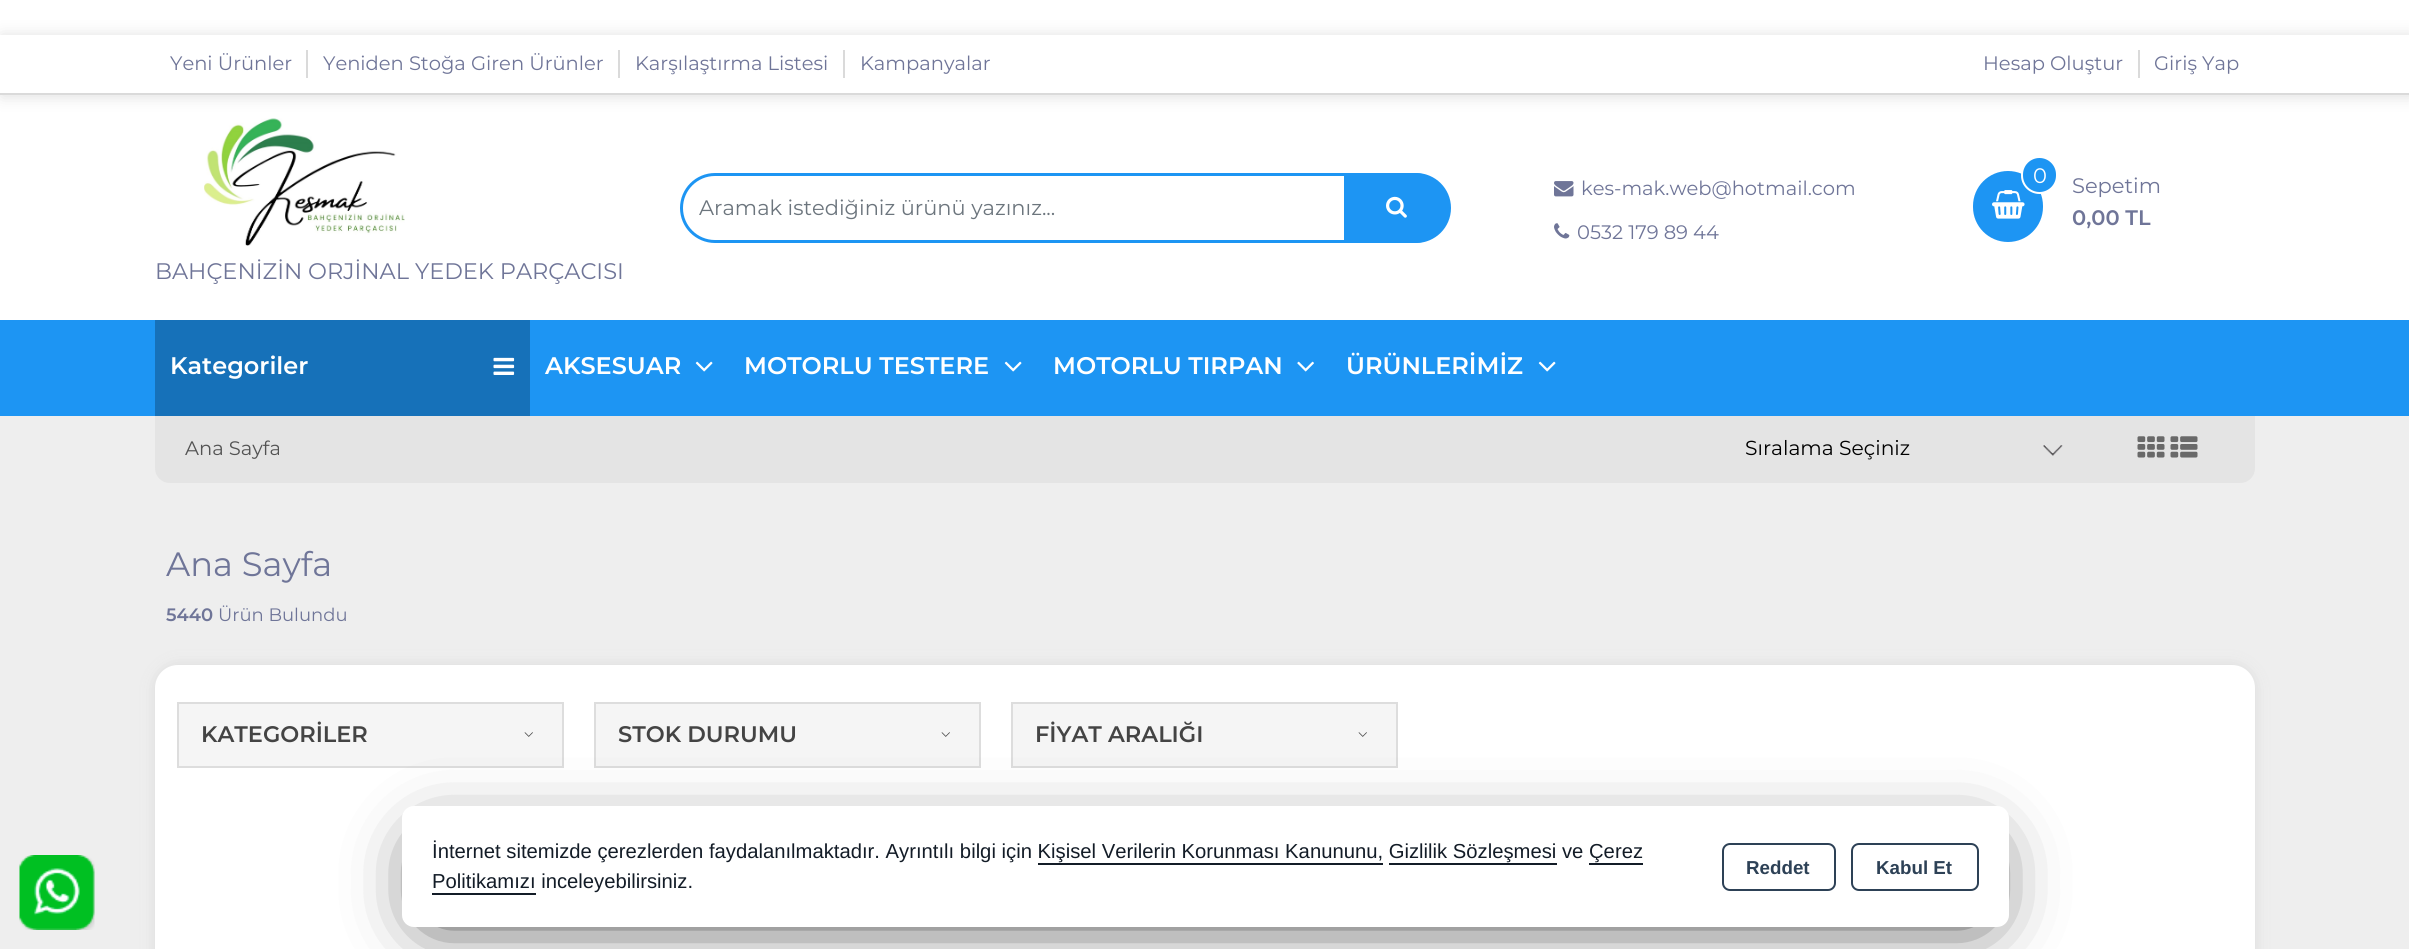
import math
import cairo

surface = cairo.ImageSurface(cairo.FORMAT_RGB24, 2409, 949)
c = cairo.Context(surface)
options = cairo.FontOptions()
options.set_hint_metrics(cairo.HINT_METRICS_OFF)
options.set_hint_style(cairo.HINT_STYLE_NONE)
c.set_font_options(options)
c.set_miter_limit(4)
def C(code):
 c.set_source_rgb(*(v / 255 for v in bytes.fromhex(code[-6:])))
def F(family, size, italic, bold):
 c.select_font_face(family, cairo.FONT_SLANT_ITALIC if italic else cairo.FONT_SLANT_NORMAL, cairo.FONT_WEIGHT_BOLD if bold else cairo.FONT_WEIGHT_NORMAL)
 c.set_font_size(size)
def T(x, y, s):
 c.move_to(x, y)
 c.show_text(s)
def R(x, y, w, h):
 c.rectangle(x, y, w, h)
 c.fill()
def Q(x, y, w, h, r):
 c.new_sub_path()
 for i, (u, v) in enumerate([(x + w - r, y + h - r), (x + r, y + h - r), (x + r, y + r), (x + w - r, y + r)]):
  c.arc(u, v, r, i * math.pi / 2, (i + 1) * math.pi / 2)
 c.close_path()
def S(x, y, w, h, r, blur, alpha):
 c.push_group_with_content(cairo.CONTENT_ALPHA)
 c.set_operator(cairo.OPERATOR_SOURCE)
 for i in range(15, -16, -2):
  e = blur * i / 6
  if min(w, h) + 2 * e > 0:
   c.set_source_rgba(0, 0, 0, alpha * math.erfc((i - 1) / 8.5) / 2)
   Q(x - e, y - e, w + 2 * e, h + 2 * e, max(0, min(r + e + blur * .6, min(w, h) / 2 + e)))
   c.fill()
 c.mask(c.pop_group())
def I(path, x, y, w, h):
 c.save()
 c.set_source_surface(cairo.ImageSurface.create_from_png(path), x, y)
 c.rectangle(x, y, w, h)
 c.fill()
 c.restore()
C('ffffff')
c.paint()
c.save()
c.set_fill_rule(cairo.FILL_RULE_EVEN_ODD)
c.new_path()
c.move_to(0,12)
c.line_to(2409,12)
c.line_to(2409,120)
c.line_to(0,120)
c.close_path()
c.move_to(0,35)
c.line_to(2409,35)
c.line_to(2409,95)
c.line_to(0,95)
c.close_path()
c.clip()
C('dddddd')
S(2,36,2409,60,0,7.5,1)
c.restore()
C('dadada')
R(0,93,2409,2)
F('Montserrat',19.5,0,0)
C('6f7598')
T(170,70,'Yeni Ürünler')
C('dadada')
R(306,50,2,28)
C('6f7598')
T(323,70,'Yeniden Stoğa Giren Ürünler')
C('dadada')
R(618,50,2,28)
C('6f7598')
T(635,70,'Karşılaştırma Listesi')
C('dadada')
R(843,50,2,28)
C('6f7598')
T(860,70,'Kampanyalar')
T(1983,70,'Hesap Oluştur')
C('dadada')
R(2138,50,2,28)
C('6f7598')
T(2154,70,'Giriş Yap')
Q(681.5,174.5,768,67,33.5)
C('1d95f3')
c.set_line_width(3)
c.stroke()
F('Montserrat',21,0,0)
C('6c757d')
T(699,215,'Aramak istediğiniz ürünü yazınız...')
C('1d95f3')
c.new_path()
c.move_to(1344,173)
c.line_to(1414,173)
c.curve_to(1433.5,173,1449,188.5,1449,208)
c.curve_to(1449,227.5,1433.5,243,1414,243)
c.line_to(1344,243)
c.close_path()
c.fill()
I('1.png',1386,196,21,22)
I('2.png',1554,181,20,16)
F('Montserrat',19.5,0,0)
C('6f7598')
T(1581,195,'kes-mak.web@hotmail.com')
I('3.png',1554,223,16,16)
T(1577,239,'0532 179 89 44')
C('1d95f3')
Q(1973,171,70,71,35)
c.fill()
I('4.png',1992,190,33,29)
Q(2022,157,35,36,17.5)
c.fill_preserve()
C('ffffff')
c.set_line_width(2)
c.stroke()
F('Montserrat',21,0,0)
T(2033,183,'0')
C('6f7598')
T(2072,193,'Sepetim')
F('Montserrat SemiBold',21,0,0)
T(2072,225,'0,00 TL')
I('5.png',204,118,201,128)
F('Montserrat',22.5,0,0)
T(155,279,'BAHÇENİZİN ORJİNAL YEDEK PARÇACISI')
C('1d95f3')
R(0,320,2409,96)
C('1671b9')
R(155,320,375,96)
F('Montserrat SemiBold',24,0,0)
C('ffffff')
T(170,374,'Kategoriler')
I('6.png',493,357,22,18)
T(545,374,'AKSESUAR')
I('7.png',695,361,18,11)
T(744,374,'MOTORLU TESTERE')
I('7.png',1004,361,18,11)
T(1053,374,'MOTORLU TIRPAN')
I('8.png',1297,361,17,11)
T(1346,374,'ÜRÜNLERİMİZ')
I('7.png',1538,361,18,11)
C('eeeeee')
R(0,416,2409,533)
C('e4e4e4')
c.new_path()
c.move_to(155,416)
c.line_to(2255,416)
c.line_to(2255,468)
c.curve_to(2255,476.5,2248.5,483,2240,483)
c.line_to(170,483)
c.curve_to(161.5,483,155,476.5,155,468)
c.close_path()
c.fill()
F('Montserrat',19.5,0,0)
C('535353')
T(185,455,'Ana Sayfa')
I('9.png',2043,445,20,11)
F('Montserrat',20.25,0,0)
C('000000')
T(1745,455,'Sıralama Seçiniz')
I('10.png',2137,436,28,22)
I('11.png',2170,436,28,22)
F('Montserrat',33.75,0,0)
C('6f7598')
T(166,576,'Ana Sayfa')
F('Montserrat SemiBold',18,0,0)
T(166,621,'5440')
F('Montserrat',18,0,0)
T(218,621,'Ürün Bulundu')
C('dcdcdc')
S(155,665,2100,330,23,7.5,1)
C('ffffff')
Q(155,665,2100,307,23)
c.fill()
C('f5f5f5')
c.rectangle(178,703,385,64)
c.fill_preserve()
C('dddddd')
c.stroke()
F('Montserrat SemiBold',22.5,0,0)
C('444444')
T(201,742,'KATEGORİLER')
I('12.png',524,732,9,5)
C('f5f5f5')
c.rectangle(595,703,385,64)
c.fill_preserve()
C('dddddd')
c.stroke()
C('444444')
T(618,742,'STOK DURUMU')
I('12.png',941,732,9,5)
C('f5f5f5')
c.rectangle(1012,703,385,64)
c.fill_preserve()
C('dddddd')
c.stroke()
C('444444')
T(1035,742,'FİYAT ARALIĞI')
I('12.png',1358,732,9,5)
I('13.png',19,855,76,75)
C('000000')
S(432,851,1547,61,0,37.5,1)
C('ffffff')
Q(402,806,1607,121,12)
c.fill()
F('Liberation Sans',20.25,0,0)
C('131c27')
T(432,858,'İnternet sitemizde çerezlerden faydalanılmaktadır. Ayrıntılı bilgi için Kişisel Verilerin Korunması Kanununu, Gizlilik Sözleşmesi ve Çerez')
R(1038,863,345,2)
R(1389,863,168,2)
T(432,888,'Politikamızı inceleyebilirsiniz.')
R(1589,863,54,2)
R(432,893,104,2)
Q(1723,844,112,46,7)
C('2d4156')
c.stroke()
F('Liberation Sans',18.75,0,1)
T(1746,874,'Reddet')
Q(1852,844,126,46,7)
c.stroke()
T(1876,874,'Kabul Et')
surface.write_to_png('o.png')
